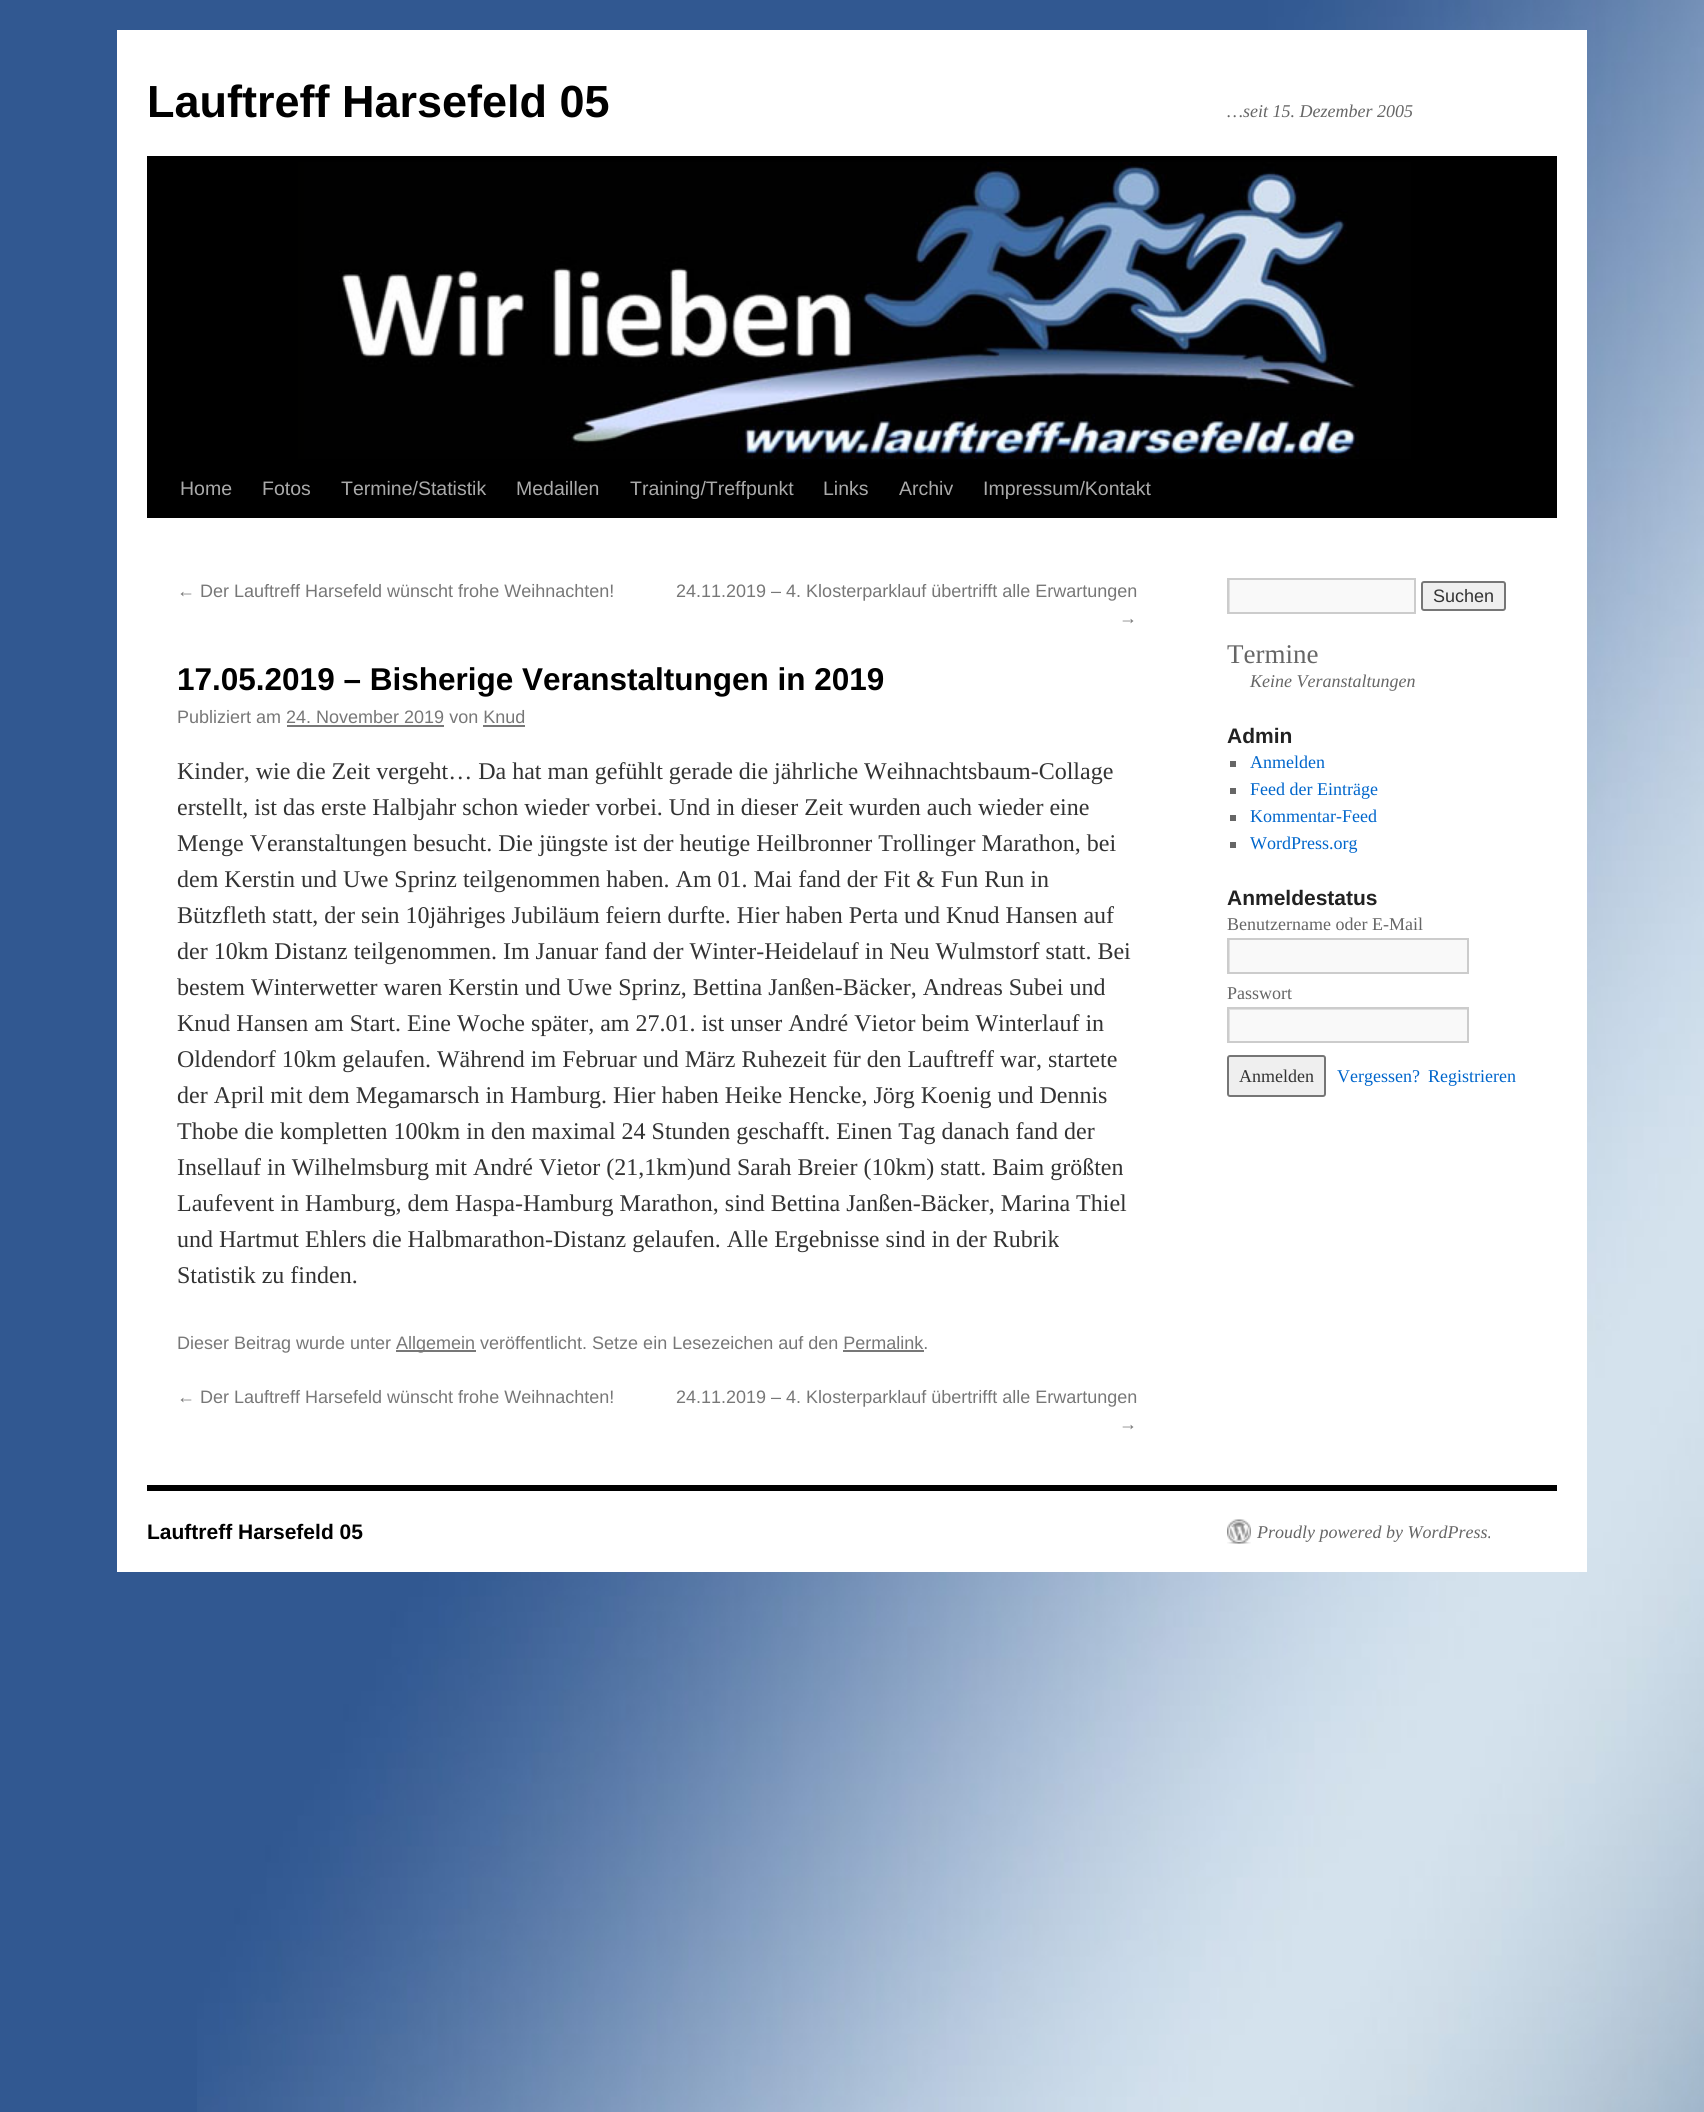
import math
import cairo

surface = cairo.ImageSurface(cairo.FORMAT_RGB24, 1704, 2112)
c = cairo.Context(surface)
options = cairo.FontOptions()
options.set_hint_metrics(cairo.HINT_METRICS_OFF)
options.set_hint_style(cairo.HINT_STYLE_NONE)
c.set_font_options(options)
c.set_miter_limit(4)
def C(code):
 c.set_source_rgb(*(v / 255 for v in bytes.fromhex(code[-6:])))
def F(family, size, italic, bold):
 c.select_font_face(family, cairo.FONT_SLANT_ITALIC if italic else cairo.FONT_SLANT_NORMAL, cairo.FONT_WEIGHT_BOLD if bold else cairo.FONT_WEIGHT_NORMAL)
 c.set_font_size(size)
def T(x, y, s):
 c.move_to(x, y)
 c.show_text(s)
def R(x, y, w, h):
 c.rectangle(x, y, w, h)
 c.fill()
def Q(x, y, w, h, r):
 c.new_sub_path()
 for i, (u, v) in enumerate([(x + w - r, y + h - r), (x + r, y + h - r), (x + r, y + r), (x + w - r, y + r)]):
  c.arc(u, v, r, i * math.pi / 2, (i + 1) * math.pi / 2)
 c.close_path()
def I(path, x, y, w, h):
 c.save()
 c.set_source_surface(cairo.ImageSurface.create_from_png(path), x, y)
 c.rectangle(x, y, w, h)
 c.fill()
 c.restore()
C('315891')
c.paint()
I('1.png',197,0,1507,2112)
C('ffffff')
R(117,30,1470,1542)
F('Liberation Sans',45,0,1)
C('000000')
T(147,117,'Lauftreff Harsefeld 05')
F('Liberation Serif',18,1,0)
C('666666')
T(1227,117,'…seit 15. Dezember 2005')
C('000000')
R(147,156,1410,6)
R(147,459,1410,59)
I('2.png',147,162,1410,297)
F('Liberation Sans',19.5,0,0)
C('aaaaaa')
T(180,495,'Home')
T(262,495,'Fotos')
T(341,495,'Termine/Statistik')
T(516,495,'Medaillen')
T(630,495,'Training/Treffpunkt')
T(823,495,'Links')
T(899,495,'Archiv')
T(983,495,'Impressum/Kontakt')
F('Liberation Sans',18,0,0)
C('777777')
T(177,597,'← Der Lauftreff Harsefeld wünscht frohe Weihnachten!')
T(676,597,'24.11.2019 – 4. Klosterparklauf übertrifft alle Erwartungen')
T(1119,624,'→')
F('Liberation Sans',31.5,0,1)
C('000000')
T(177,690,'17.05.2019 – Bisherige Veranstaltungen in 2019')
F('Liberation Sans',18,0,0)
C('777777')
T(177,723,'Publiziert am 24. November 2019 von Knud')
R(287,725,157,2)
R(483,725,42,2)
F('Liberation Serif',24,0,0)
C('333333')
T(177,779,'Kinder, wie die Zeit vergeht… Da hat man gefühlt gerade die jährliche Weihnachtsbaum-Collage')
T(177,815,'erstellt, ist das erste Halbjahr schon wieder vorbei. Und in dieser Zeit wurden auch wieder eine')
T(177,851,'Menge Veranstaltungen besucht. Die jüngste ist der heutige Heilbronner Trollinger Marathon, bei')
T(177,887,'dem Kerstin und Uwe Sprinz teilgenommen haben. Am 01. Mai fand der Fit & Fun Run in')
T(177,923,'Bützfleth statt, der sein 10jähriges Jubiläum feiern durfte. Hier haben Perta und Knud Hansen auf')
T(177,959,'der 10km Distanz teilgenommen. Im Januar fand der Winter-Heidelauf in Neu Wulmstorf statt. Bei')
T(177,995,'bestem Winterwetter waren Kerstin und Uwe Sprinz, Bettina Janßen-Bäcker, Andreas Subei und')
T(177,1031,'Knud Hansen am Start. Eine Woche später, am 27.01. ist unser André Vietor beim Winterlauf in')
T(177,1067,'Oldendorf 10km gelaufen. Während im Februar und März Ruhezeit für den Lauftreff war, startete')
T(177,1103,'der April mit dem Megamarsch in Hamburg. Hier haben Heike Hencke, Jörg Koenig und Dennis')
T(177,1139,'Thobe die kompletten 100km in den maximal 24 Stunden geschafft. Einen Tag danach fand der')
T(177,1175,'Insellauf in Wilhelmsburg mit André Vietor (21,1km)und Sarah Breier (10km) statt. Baim größten')
T(177,1211,'Laufevent in Hamburg, dem Haspa-Hamburg Marathon, sind Bettina Janßen-Bäcker, Marina Thiel')
T(177,1247,'und Hartmut Ehlers die Halbmarathon-Distanz gelaufen. Alle Ergebnisse sind in der Rubrik')
T(177,1283,'Statistik zu finden.')
F('Liberation Sans',18,0,0)
C('777777')
T(177,1349,'Dieser Beitrag wurde unter')
R(396,1350,80,2)
T(396,1349,'Allgemein veröffentlicht. Setze ein Lesezeichen auf den Permalink.')
R(843,1350,81,2)
T(177,1403,'← Der Lauftreff Harsefeld wünscht frohe Weihnachten!')
T(676,1403,'24.11.2019 – 4. Klosterparklauf übertrifft alle Erwartungen')
T(1119,1430,'→')
C('f9f9f9')
R(1230,580,184,32)
c.save()
c.rectangle(1229,579,186,33)
c.clip()
C('e0e0e0')
c.set_fill_rule(cairo.FILL_RULE_EVEN_ODD)
c.new_path()
c.move_to(1080,430)
c.line_to(1563,430)
c.line_to(1563,760)
c.line_to(1080,760)
c.close_path()
c.move_to(1230,580)
c.line_to(1416,580)
c.line_to(1416,614)
c.line_to(1230,614)
c.close_path()
c.fill()
c.restore()
c.rectangle(1228,579,187,34)
C('cccccc')
c.stroke()
C('efefef')
Q(1422,582,83,28,2)
c.fill_preserve()
C('767676')
c.stroke()
C('333333')
T(1433,602,'Suchen')
F('Liberation Serif',27,0,0)
C('666666')
T(1227,663,'Termine')
F('Liberation Serif',18,1,0)
T(1250,687,'Keine Veranstaltungen')
F('Liberation Sans',21,0,1)
C('222222')
T(1227,743,'Admin')
C('666666')
R(1230,761,6,6)
F('Liberation Serif',18,0,0)
C('0066cc')
T(1250,768,'Anmelden')
C('666666')
R(1230,788,6,6)
C('0066cc')
T(1250,795,'Feed der Einträge')
C('666666')
R(1230,815,6,6)
C('0066cc')
T(1250,822,'Kommentar-Feed')
C('666666')
R(1230,842,6,6)
C('0066cc')
T(1250,849,'WordPress.org')
F('Liberation Sans',21,0,1)
C('222222')
T(1227,905,'Anmeldestatus')
F('Liberation Serif',18,0,0)
C('666666')
T(1227,930,'Benutzername oder E-Mail')
C('f9f9f9')
R(1230,940,237,32)
c.save()
c.rectangle(1229,939,238,33)
c.clip()
C('e0e0e0')
c.set_fill_rule(cairo.FILL_RULE_EVEN_ODD)
c.new_path()
c.move_to(1080,790)
c.line_to(1616,790)
c.line_to(1616,1120)
c.line_to(1080,1120)
c.close_path()
c.move_to(1230,940)
c.line_to(1468,940)
c.line_to(1468,974)
c.line_to(1230,974)
c.close_path()
c.fill()
c.restore()
c.rectangle(1228,939,240,34)
C('cccccc')
c.stroke()
C('666666')
T(1227,999,'Passwort')
C('f9f9f9')
R(1230,1010,237,31)
c.save()
c.rectangle(1229,1008,238,33)
c.clip()
C('e0e0e0')
c.set_fill_rule(cairo.FILL_RULE_EVEN_ODD)
c.new_path()
c.move_to(1080,860)
c.line_to(1616,860)
c.line_to(1616,1190)
c.line_to(1080,1190)
c.close_path()
c.move_to(1230,1010)
c.line_to(1468,1010)
c.line_to(1468,1042)
c.line_to(1230,1042)
c.close_path()
c.fill()
c.restore()
c.rectangle(1228,1008,240,34)
C('cccccc')
c.stroke()
C('efefef')
Q(1228,1056,97,40,2)
c.fill_preserve()
C('767676')
c.stroke()
C('333333')
T(1239,1082,'Anmelden')
C('0066cc')
T(1337,1082,'Vergessen?')
T(1428,1082,'Registrieren')
C('000000')
R(147,1485,1410,6)
F('Liberation Sans',21,0,1)
T(147,1539,'Lauftreff Harsefeld 05')
I('3.png',1227,1519,24,25)
F('Liberation Serif',18,1,0)
C('666666')
T(1257,1538,'Proudly powered by WordPress.')
surface.write_to_png('o.png')
